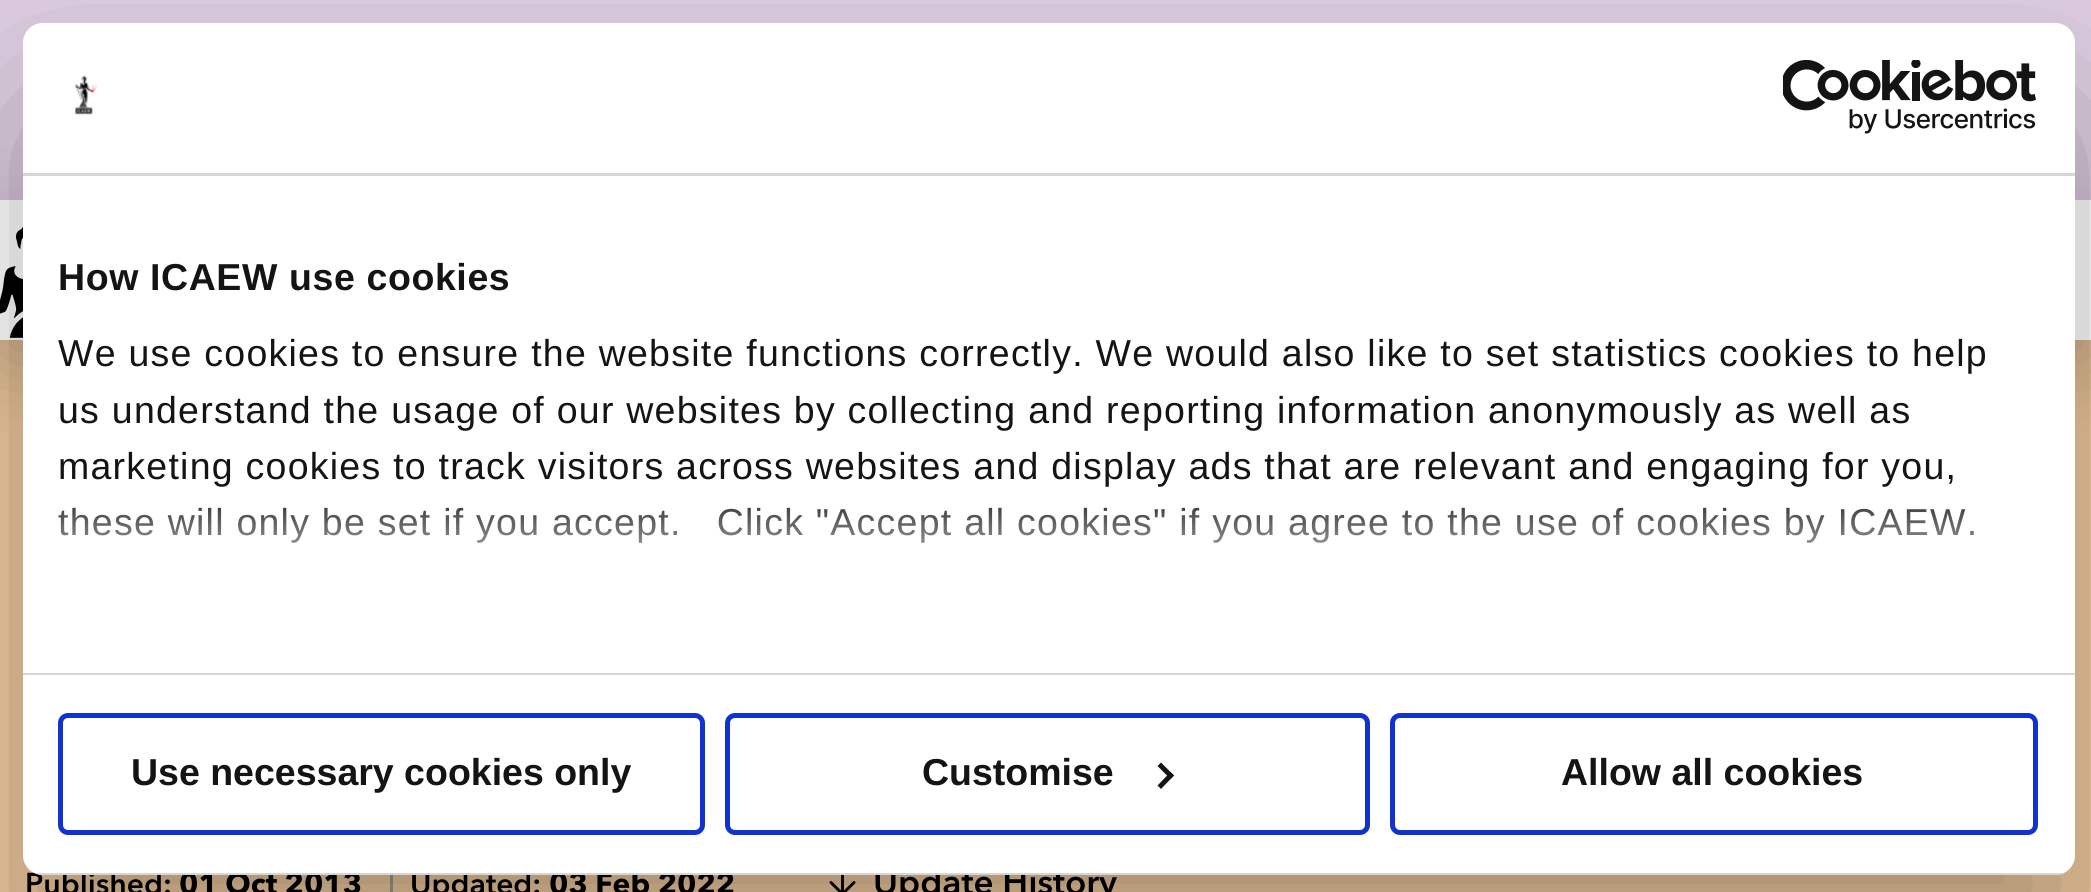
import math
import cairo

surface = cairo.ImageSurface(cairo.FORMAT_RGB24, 2091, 892)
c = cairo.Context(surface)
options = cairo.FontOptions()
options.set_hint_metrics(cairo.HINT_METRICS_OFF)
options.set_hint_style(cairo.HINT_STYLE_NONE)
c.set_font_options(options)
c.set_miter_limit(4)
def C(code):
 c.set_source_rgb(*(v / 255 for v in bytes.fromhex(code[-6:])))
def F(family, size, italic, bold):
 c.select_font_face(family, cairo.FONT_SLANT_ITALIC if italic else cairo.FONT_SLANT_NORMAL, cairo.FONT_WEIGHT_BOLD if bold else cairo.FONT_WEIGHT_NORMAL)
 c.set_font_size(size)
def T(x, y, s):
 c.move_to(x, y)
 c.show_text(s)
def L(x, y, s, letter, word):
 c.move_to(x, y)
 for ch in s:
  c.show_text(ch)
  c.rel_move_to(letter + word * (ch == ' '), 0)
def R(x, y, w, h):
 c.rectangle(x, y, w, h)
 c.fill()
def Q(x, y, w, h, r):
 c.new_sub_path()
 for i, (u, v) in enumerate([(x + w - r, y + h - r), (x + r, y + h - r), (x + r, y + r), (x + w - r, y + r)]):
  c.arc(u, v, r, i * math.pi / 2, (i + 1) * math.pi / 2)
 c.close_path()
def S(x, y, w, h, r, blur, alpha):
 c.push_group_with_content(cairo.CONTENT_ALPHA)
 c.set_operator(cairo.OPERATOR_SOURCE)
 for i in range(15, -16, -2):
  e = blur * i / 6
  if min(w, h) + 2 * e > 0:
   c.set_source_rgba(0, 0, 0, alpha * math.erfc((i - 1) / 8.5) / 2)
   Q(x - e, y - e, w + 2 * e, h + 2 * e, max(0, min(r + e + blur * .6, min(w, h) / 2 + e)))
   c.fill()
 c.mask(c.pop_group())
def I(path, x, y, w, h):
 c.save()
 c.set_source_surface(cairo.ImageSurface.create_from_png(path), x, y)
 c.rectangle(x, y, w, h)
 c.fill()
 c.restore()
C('ffffff')
c.paint()
C('e0cfe3')
R(0,0,2091,200)
C('f0ca9e')
R(0,340,2091,552)
c.save()
c.set_fill_rule(cairo.FILL_RULE_EVEN_ODD)
c.new_path()
c.move_to(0,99)
c.line_to(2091,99)
c.line_to(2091,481)
c.line_to(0,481)
c.close_path()
c.move_to(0,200)
c.line_to(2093,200)
c.line_to(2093,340)
c.line_to(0,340)
c.close_path()
c.clip()
C('000000')
S(0,220,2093,140,0,40,.1)
S(0,220,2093,140,0,40,.1)
c.restore()
I('1.png',0,227,23,111)
C('999999')
R(390,870,3,22)
c.new_path()
c.move_to(842.5,871)
c.line_to(842.5,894)
c.move_to(854,882.5)
c.line_to(842.5,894)
c.line_to(831,882.5)
C('000000')
c.set_line_width(2.9)
c.set_line_cap(cairo.LINE_CAP_ROUND)
c.set_line_join(cairo.LINE_JOIN_ROUND)
c.stroke()
c.save()
c.set_fill_rule(cairo.FILL_RULE_EVEN_ODD)
c.new_path()
c.move_to(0,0)
c.line_to(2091,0)
c.line_to(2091,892)
c.line_to(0,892)
c.close_path()
c.move_to(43,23)
c.line_to(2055,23)
c.curve_to(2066,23,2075,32,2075,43)
c.line_to(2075,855)
c.curve_to(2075,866,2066,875,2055,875)
c.line_to(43,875)
c.curve_to(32,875,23,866,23,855)
c.line_to(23,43)
c.curve_to(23,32,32,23,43,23)
c.close_path()
c.clip()
C('000000')
S(23,103,2052,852,20,85,.3)
c.restore()
F('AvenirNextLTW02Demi',30,0,1)
T(25,894,'Published:')
F('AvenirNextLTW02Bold',30,0,1)
T(179,894,'01 Oct 2013')
F('AvenirNextLTW02Demi',30,0,1)
T(410,894,'Updated:')
F('AvenirNextLTW02Bold',30,0,1)
T(549,894,'03 Feb 2022')
F('AvenirNextLTW02Demi',35,0,1)
T(873,894,'Update History')
C('ffffff')
Q(23,23,2052,852,20)
c.fill()
C('d6d6d6')
R(23,173,2052,3)
I('2.png',74,75,24,40)
I('3.png',1783,60,253,74)
R(23,673,2052,2)
F('Liberation Sans',37.5,0,1)
C('141414')
L(58,290,'How ICAEW use cookies',.6,0)
F('Liberation Sans',37.5,0,0)
L(58,366,'We use cookies to ensure the website functions correctly. We would also like to set statistics cookies to help',1.25,0)
L(58,423,'us understand the usage of our websites by collecting and reporting information anonymously as well as',1.25,0)
L(58,479,'marketing cookies to track visitors across websites and display ads that are relevant and engaging for you,',1.25,0)
L(58,535,'these will only be set if you accept.   Click "Accept all cookies" if you agree to the use of cookies by ICAEW.',1.25,0)
gradient = cairo.LinearGradient(1031,671,1031,484)
gradient.add_color_stop_rgba(0,1,1,1,1)
gradient.add_color_stop_rgba(.5,1,1,1,.8)
gradient.add_color_stop_rgba(1,1,1,1,0)
c.set_source(gradient)
R(58,507,1916,36)
c.save()
Q(23,23,2052,852,20)
c.clip()
C('d6d6d6')
R(34,873,2030,2)
c.restore()
Q(60.5,715.5,642,117,7.5)
C('1032cf')
c.set_line_width(5)
c.set_line_cap(cairo.LINE_CAP_BUTT)
c.set_line_join(cairo.LINE_JOIN_MITER)
c.stroke()
F('Liberation Sans',37.5,0,1)
C('141414')
T(131,785,'Use necessary cookies only')
Q(727.5,715.5,640,117,7.5)
C('1032cf')
c.stroke()
C('141414')
T(922,785,'Customise')
c.new_path()
c.move_to(1161,762.5)
c.line_to(1174,775.5)
c.line_to(1170.5,779)
c.line_to(1157.5,766)
c.close_path()
c.fill()
c.new_path()
c.move_to(1170.5,772)
c.line_to(1174,775.5)
c.line_to(1161,789)
c.line_to(1157.5,785.5)
c.close_path()
c.fill()
Q(1392.5,715.5,643,117,7.5)
C('1032cf')
c.stroke()
C('141414')
T(1561,785,'Allow all cookies')
surface.write_to_png('o.png')
